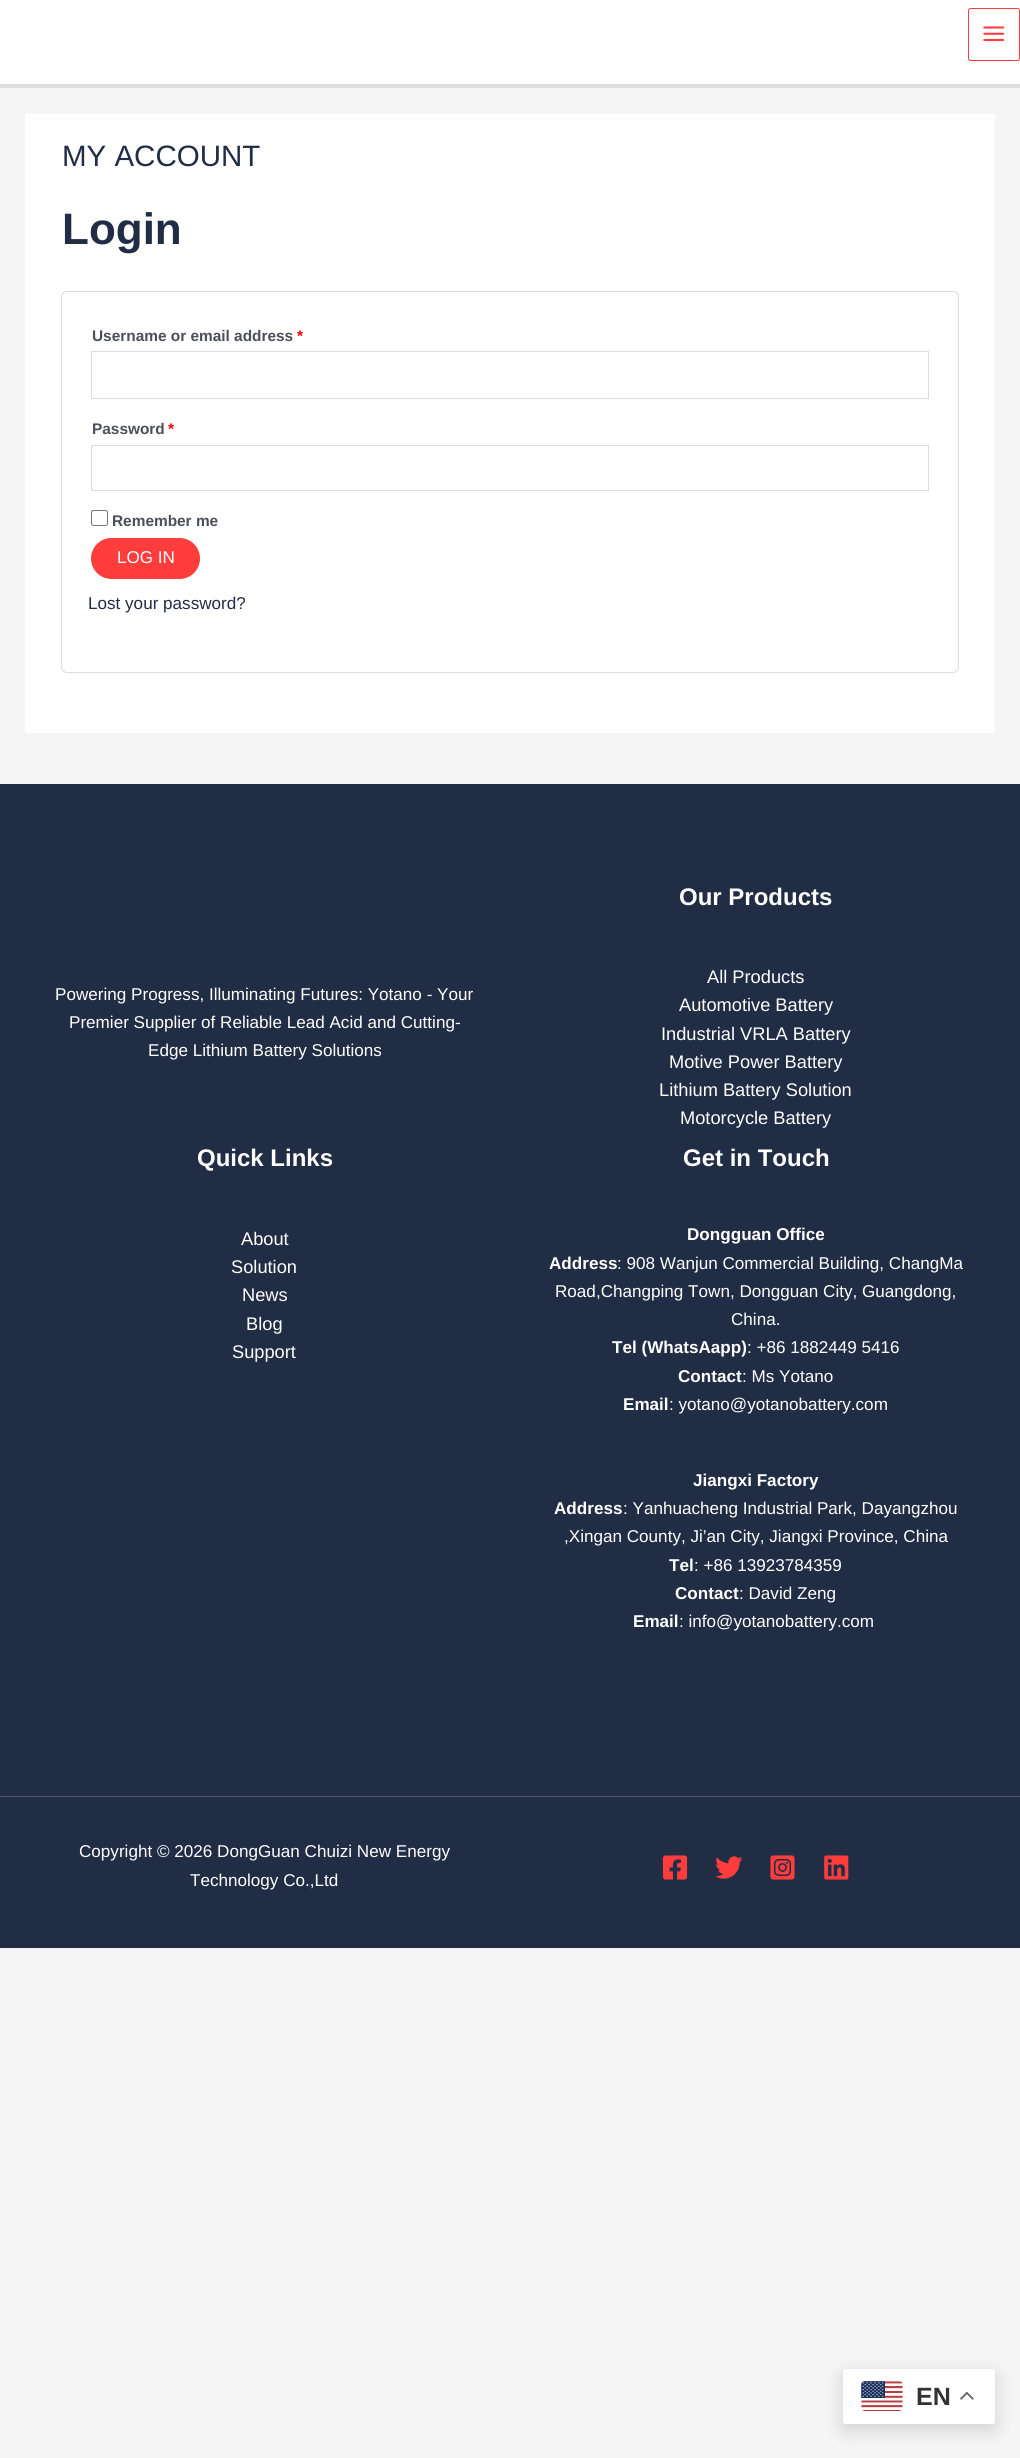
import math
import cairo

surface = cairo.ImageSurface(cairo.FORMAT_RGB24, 1020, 2458)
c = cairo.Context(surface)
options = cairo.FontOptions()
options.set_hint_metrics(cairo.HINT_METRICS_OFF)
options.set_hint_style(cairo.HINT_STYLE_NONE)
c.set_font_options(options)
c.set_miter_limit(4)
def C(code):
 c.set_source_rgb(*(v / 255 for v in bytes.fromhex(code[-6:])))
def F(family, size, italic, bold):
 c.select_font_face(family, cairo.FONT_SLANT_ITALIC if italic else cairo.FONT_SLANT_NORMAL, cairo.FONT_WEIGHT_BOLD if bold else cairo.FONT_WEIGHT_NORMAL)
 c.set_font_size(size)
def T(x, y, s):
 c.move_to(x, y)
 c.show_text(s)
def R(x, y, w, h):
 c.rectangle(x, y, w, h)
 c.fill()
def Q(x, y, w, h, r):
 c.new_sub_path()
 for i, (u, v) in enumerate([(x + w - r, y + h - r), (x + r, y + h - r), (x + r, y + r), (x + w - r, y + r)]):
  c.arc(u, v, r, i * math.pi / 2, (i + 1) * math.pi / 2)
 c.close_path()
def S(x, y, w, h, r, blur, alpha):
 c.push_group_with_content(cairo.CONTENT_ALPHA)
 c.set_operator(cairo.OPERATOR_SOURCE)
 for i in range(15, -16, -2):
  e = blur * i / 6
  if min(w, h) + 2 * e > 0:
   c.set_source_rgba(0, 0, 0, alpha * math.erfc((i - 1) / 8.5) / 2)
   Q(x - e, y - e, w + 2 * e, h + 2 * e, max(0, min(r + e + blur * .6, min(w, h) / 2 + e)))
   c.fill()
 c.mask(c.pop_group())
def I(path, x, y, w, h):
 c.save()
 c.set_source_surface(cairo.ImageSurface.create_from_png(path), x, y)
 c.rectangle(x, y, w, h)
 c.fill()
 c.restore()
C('f5f5f5')
c.paint()
C('ffffff')
R(0,0,1020,84)
C('dddddd')
R(0,84,1020,4)
Q(968.5,8.5,51,52,2)
C('ff3d3d')
c.set_line_width(1)
c.stroke()
I('1.png',983,26,22,16)
C('ffffff')
R(25,114,970,619)
F('Liberation Sans',29.5,0,0)
C('212d45')
T(62,166,'MY ACCOUNT')
F('Liberation Sans',44,0,1)
T(62,244,'Login')
Q(61.5,291.5,897,381,5.5)
C('dddddd')
c.stroke()
F('Liberation Sans',15.4,0,1)
C('4b4f58')
T(92,341,'Username or email address')
C('ff0000')
T(297,341,'*')
c.rectangle(91.5,351.5,837,47)
C('dddddd')
c.stroke()
C('4b4f58')
T(92,434,'Password')
C('ff0000')
T(168,434,'*')
c.rectangle(91.5,445.5,837,45)
C('dddddd')
c.stroke()
Q(91.5,510.5,16,15,2)
C('767676')
c.stroke()
C('4b4f58')
T(112,526,'Remember me')
C('ff3d3d')
Q(91,538,109,41,20.5)
c.fill()
F('Liberation Sans',17.1,0,0)
C('ffffff')
T(117,563,'LOG IN')
C('212d45')
T(88,609,'Lost your password?')
R(0,784,1020,1164)
C('ffffff')
T(55,1000,'Powering Progress, Illuminating Futures: Yotano - Your')
T(69,1028,'Premier Supplier of Reliable Lead Acid and Cutting-')
T(148,1056,'Edge Lithium Battery Solutions')
F('Liberation Sans',24,0,1)
T(679,905,'Our Products')
F('Liberation Sans',18.25,0,0)
T(707,983,'All Products')
T(679,1011,'Automotive Battery')
T(661,1040,'Industrial VRLA Battery')
T(669,1068,'Motive Power Battery')
T(659,1096,'Lithium Battery Solution')
T(680,1124,'Motorcycle Battery')
F('Liberation Sans',24,0,1)
T(197,1166,'Quick Links')
F('Liberation Sans',18.25,0,0)
T(241,1245,'About')
T(231,1273,'Solution')
T(242,1301,'News')
T(246,1330,'Blog')
T(232,1358,'Support')
F('Liberation Sans',24,0,1)
T(683,1166,'Get in Touch')
F('Liberation Sans',17.1,0,1)
T(687,1240,'Dongguan Office')
T(549,1269,'Address')
F('Liberation Sans',17.1,0,0)
T(617,1269,': 908 Wanjun Commercial Building, ChangMa')
T(555,1297,'Road,Changping Town, Dongguan City, Guangdong,')
T(731,1325,'China.')
F('Liberation Sans',17.1,0,1)
T(612,1353,'Tel (WhatsAapp)')
F('Liberation Sans',17.1,0,0)
T(747,1353,': +86 1882449 5416')
F('Liberation Sans',17.1,0,1)
T(678,1382,'Contact')
F('Liberation Sans',17.1,0,0)
T(742,1382,': Ms Yotano')
F('Liberation Sans',17.1,0,1)
T(623,1410,'Email')
F('Liberation Sans',17.1,0,0)
T(669,1410,': yotano@yotanobattery.com')
F('Liberation Sans',17.1,0,1)
T(693,1486,'Jiangxi Factory')
T(554,1514,'Address')
F('Liberation Sans',17.1,0,0)
T(623,1514,': Yanhuacheng Industrial Park, Dayangzhou')
T(564,1542,',Xingan County, Ji’an City, Jiangxi Province, China')
F('Liberation Sans',17.1,0,1)
T(669,1571,'Tel')
F('Liberation Sans',17.1,0,0)
T(694,1571,': +86 13923784359')
F('Liberation Sans',17.1,0,1)
T(675,1599,'Contact')
F('Liberation Sans',17.1,0,0)
T(739,1599,': David Zeng')
F('Liberation Sans',17.1,0,1)
T(633,1627,'Email')
F('Liberation Sans',17.1,0,0)
T(679,1627,': info@yotanobattery.com')
C('4d5566')
R(0,1796,1020,1)
C('ffffff')
T(79,1857,'Copyright © 2026 DongGuan Chuizi New Energy')
T(190,1886,'Technology Co.,Ltd')
I('2.png',662,1855,26,25)
I('3.png',715,1856,28,23)
I('4.png',770,1855,25,25)
I('5.png',824,1855,25,25)
C('000000')
S(843,2375,152,55,2.5,9.5,.15)
C('ffffff')
Q(843,2369,152,55,2.5)
c.fill()
I('6.png',861,2381,42,30)
F('Liberation Sans',25,0,1)
C('333333')
T(916,2405,'EN')
I('7.png',960,2391,14,9)
surface.write_to_png('o.png')
